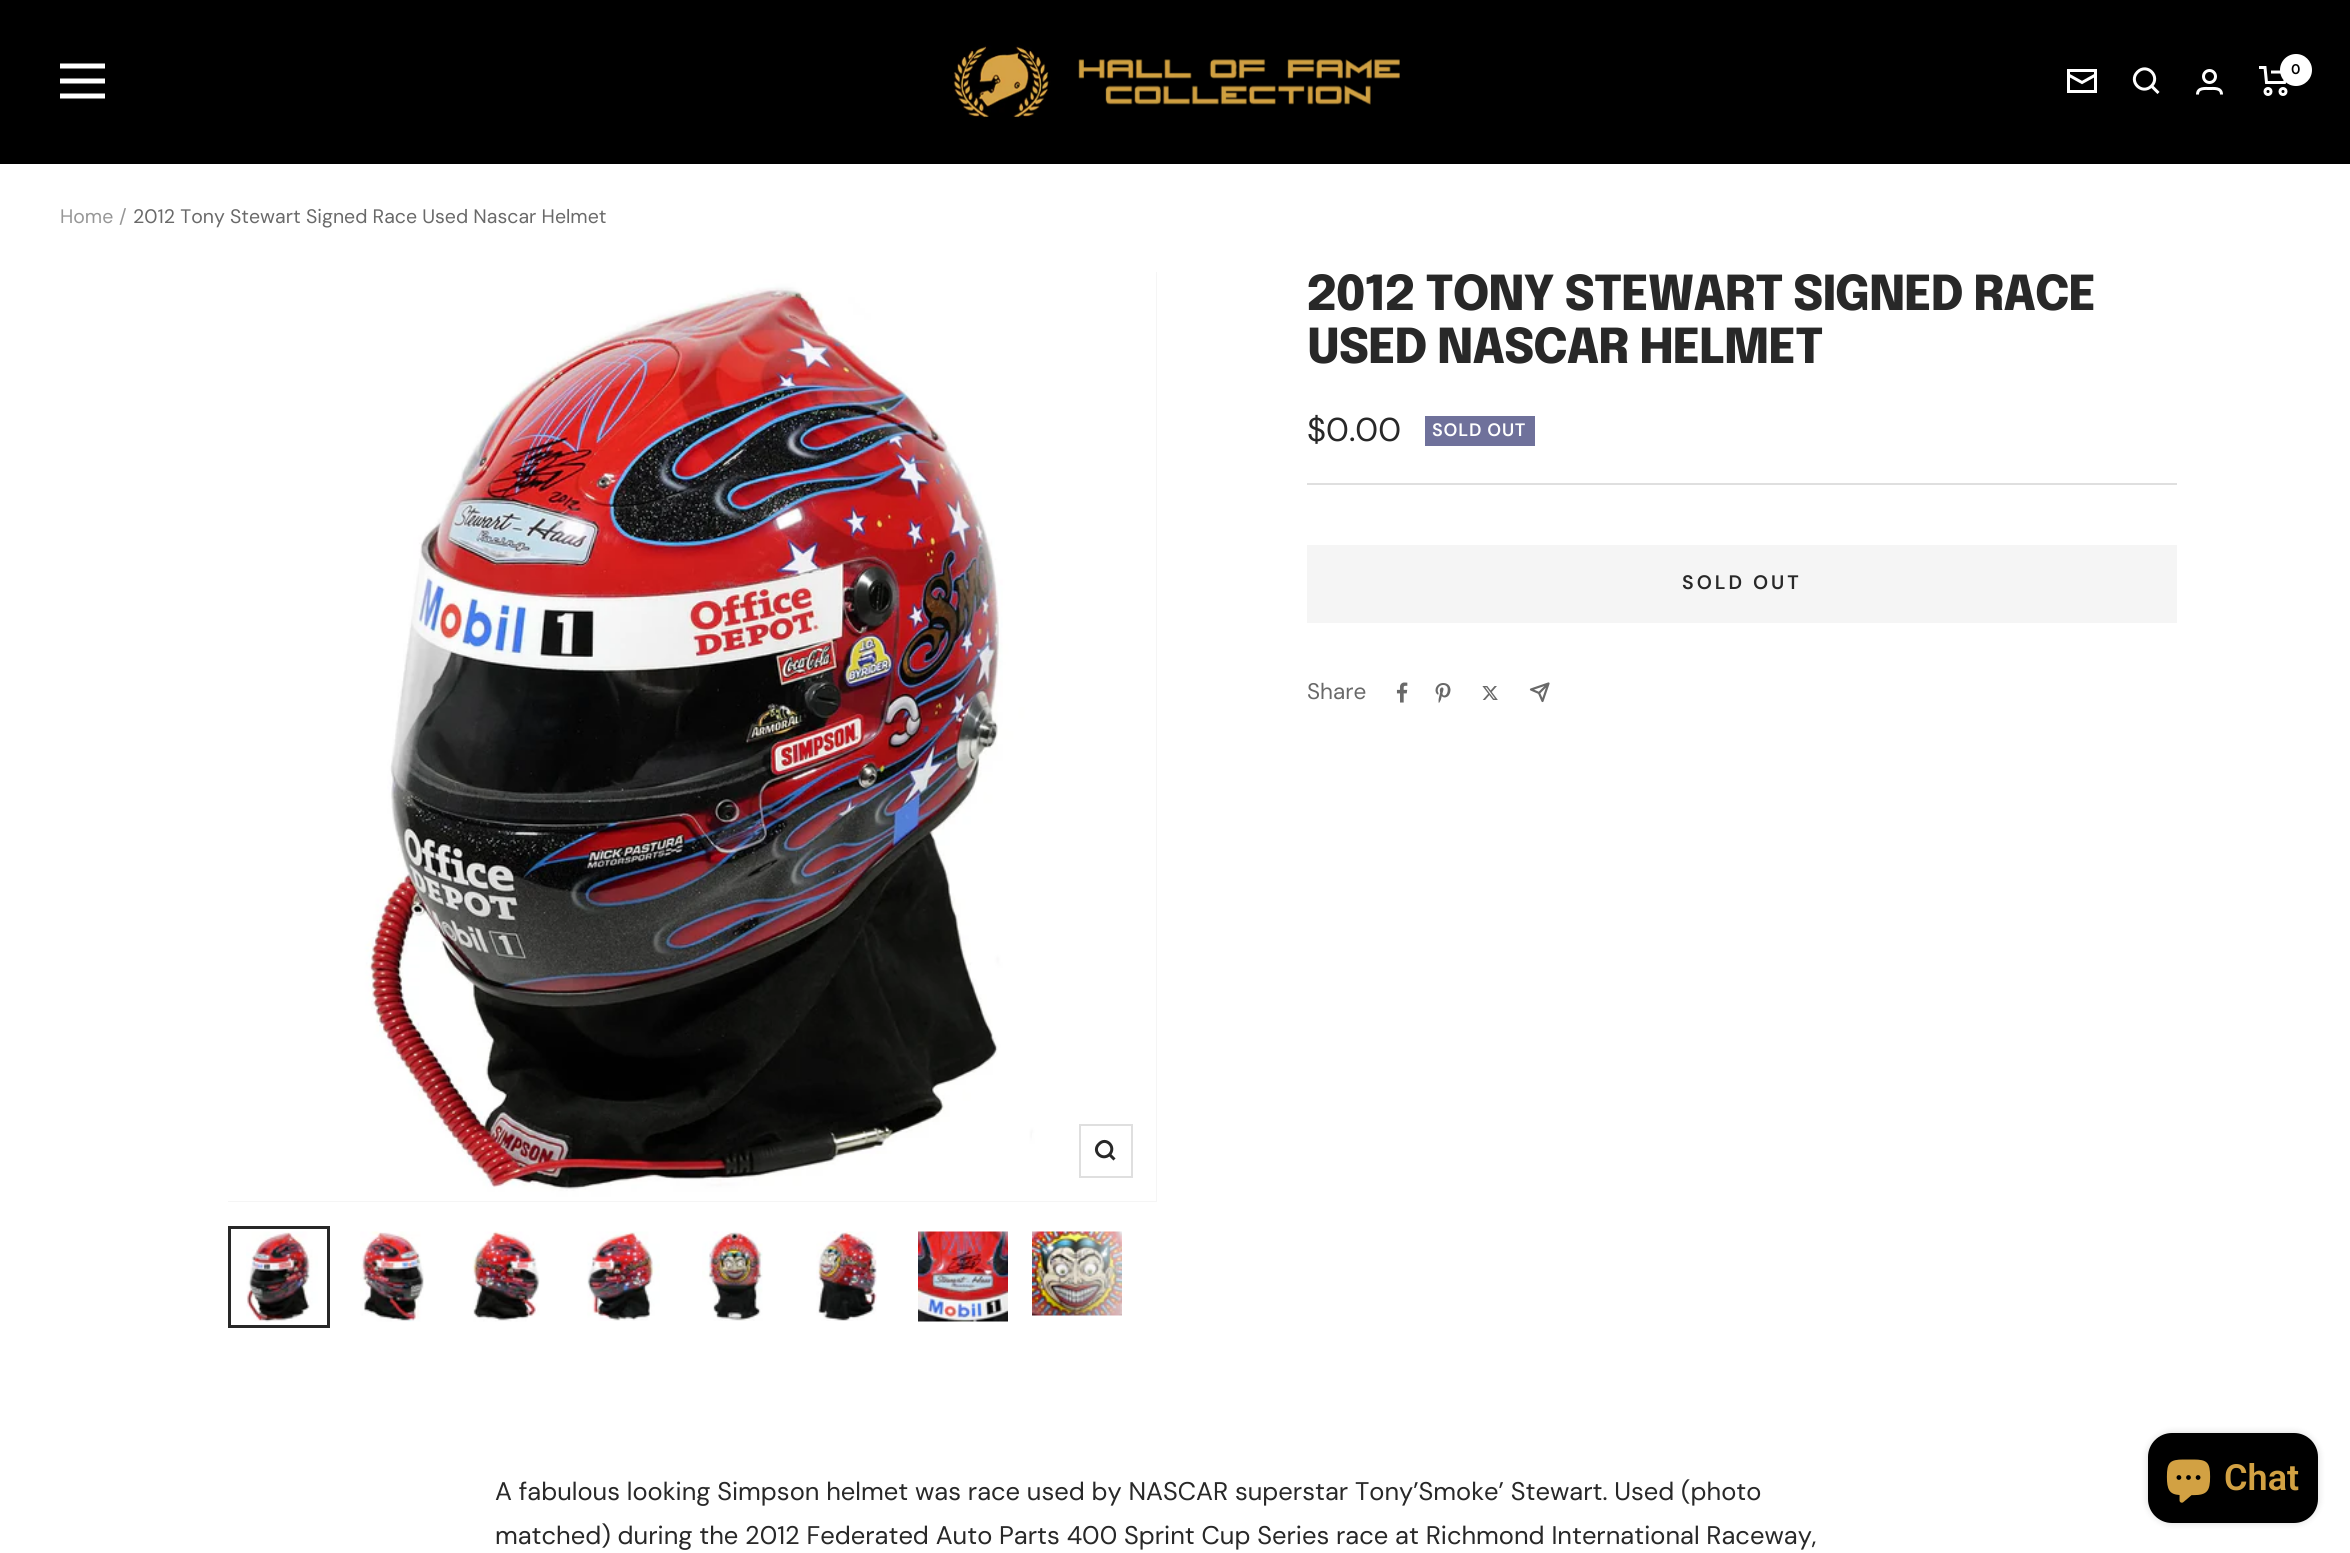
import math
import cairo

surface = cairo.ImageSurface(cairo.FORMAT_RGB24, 2350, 1553)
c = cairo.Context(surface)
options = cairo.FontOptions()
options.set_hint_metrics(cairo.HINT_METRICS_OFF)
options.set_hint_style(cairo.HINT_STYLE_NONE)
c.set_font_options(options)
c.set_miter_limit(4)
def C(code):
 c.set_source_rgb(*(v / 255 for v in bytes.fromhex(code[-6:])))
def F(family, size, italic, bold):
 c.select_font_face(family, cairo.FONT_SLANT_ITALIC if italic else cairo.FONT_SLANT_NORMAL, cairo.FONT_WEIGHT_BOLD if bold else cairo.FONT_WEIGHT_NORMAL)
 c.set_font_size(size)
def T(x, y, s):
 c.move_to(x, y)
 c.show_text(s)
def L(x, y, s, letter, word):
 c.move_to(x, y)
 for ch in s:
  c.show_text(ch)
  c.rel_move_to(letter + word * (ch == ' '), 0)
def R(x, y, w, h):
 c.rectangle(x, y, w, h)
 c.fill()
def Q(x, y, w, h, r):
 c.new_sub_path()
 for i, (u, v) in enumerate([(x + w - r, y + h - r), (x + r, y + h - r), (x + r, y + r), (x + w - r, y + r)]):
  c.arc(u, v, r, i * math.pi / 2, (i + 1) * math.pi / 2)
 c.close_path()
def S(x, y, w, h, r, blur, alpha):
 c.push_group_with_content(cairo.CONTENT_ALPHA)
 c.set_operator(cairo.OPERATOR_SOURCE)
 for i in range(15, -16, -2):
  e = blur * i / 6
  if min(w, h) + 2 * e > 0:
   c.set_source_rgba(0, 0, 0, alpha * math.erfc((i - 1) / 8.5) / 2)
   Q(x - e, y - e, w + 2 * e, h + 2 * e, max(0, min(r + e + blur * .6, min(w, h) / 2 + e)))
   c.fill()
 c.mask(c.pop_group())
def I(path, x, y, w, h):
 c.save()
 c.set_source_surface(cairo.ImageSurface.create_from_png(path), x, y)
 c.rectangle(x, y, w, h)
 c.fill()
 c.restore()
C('ffffff')
c.paint()
C('000000')
R(0,0,2350,164)
c.new_path()
c.move_to(60,66)
c.line_to(105,66)
c.move_to(60,96)
c.line_to(105,96)
c.close_path()
c.move_to(60,81)
c.line_to(105,81)
c.close_path()
C('ffffff')
c.set_line_width(5)
c.stroke()
I('1.png',953,45,447,73)
c.new_path()
c.move_to(2095.5,75)
c.line_to(2082,82.5)
c.line_to(2068.5,75)
c.move_to(2068.5,70.5)
c.line_to(2095.5,70.5)
c.line_to(2095.5,91.5)
c.line_to(2068.5,91.5)
c.close_path()
c.set_line_width(3)
c.stroke()
c.new_path()
c.move_to(2151.5,86)
c.curve_to(2161,76.5,2147,62.5,2137.5,72)
c.curve_to(2128,81.5,2142,95.5,2151.5,86)
c.close_path()
c.move_to(2151.5,86)
c.line_to(2158.5,93)
c.stroke()
c.arc(2209.5,76.5,6,0,2 * math.pi)
c.stroke()
c.new_path()
c.move_to(2197.5,94.5)
c.curve_to(2197.5,87.5,2205,88.5,2209.5,88.5)
c.curve_to(2214,88.5,2221.5,87.5,2221.5,94.5)
c.stroke()
c.new_path()
c.move_to(2259,67.5)
c.line_to(2265,67.5)
c.line_to(2266.5,82.5)
c.line_to(2284.5,82.5)
c.line_to(2287.5,72)
c.line_to(2271,72)
c.stroke()
c.arc(2268,91.5,3,0,2 * math.pi)
c.stroke()
c.arc(2283,91.5,3,0,2 * math.pi)
c.stroke()
c.arc(2296,70,16,0,2 * math.pi)
c.fill()
F('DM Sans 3 SemiBold',14,0,0)
C('000000')
T(2291,74,'0')
F('DM Sans',19.5,0,0)
C('969696')
T(60,223,'Home')
T(119,223,'/')
C('696969')
T(133,223,'2012 Tony Stewart Signed Race Used Nascar Helmet')
C('f5f5f5')
R(228,272,929,930)
I('2.png',228,272,928,929)
c.rectangle(1080,1125,52,52)
C('dfdfdf')
c.set_line_width(2)
c.stroke()
c.new_path()
c.move_to(1109.5,1154.5)
c.curve_to(1116.5,1147,1106,1136.5,1099,1144)
c.curve_to(1091.5,1151,1102,1161.5,1109.5,1154.5)
c.close_path()
c.move_to(1109.5,1154.5)
c.line_to(1114.5,1159.5)
C('282828')
c.set_line_width(3)
c.stroke()
I('3.png',246,1231,72,91)
c.rectangle(229.5,1227.5,99,99)
c.stroke()
I('4.png',360,1231,64,91)
I('5.png',472,1231,68,91)
I('6.png',587,1231,73,90)
I('7.png',702,1231,61,90)
I('8.png',816,1231,61,90)
I('9.png',918,1231,90,91)
I('10.png',1032,1231,90,85)
gradient = cairo.LinearGradient(1157,1288,1059,1288)
gradient.add_color_stop_rgba(0,1,1,1,1)
gradient.add_color_stop_rgba(1,1,1,1,0)
c.set_source(gradient)
R(1061,1231,61,85)
C('dfdfdf')
R(1307,483,870,2)
F('Epilogue ExtraBold',48,0,0)
C('282828')
L(1307,310,'2012 TONY STEWART SIGNED RACE',-1.2,0)
L(1307,363,'USED NASCAR HELMET',-1.2,0)
F('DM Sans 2',33,0,0)
T(1307,441,'$0.00')
C('6f719b')
R(1425,416,110,30)
F('DM Sans SemiBold',18,0,0)
C('ffffff')
L(1432,436,'SOLD OUT',.75,0)
C('f5f5f5')
R(1307,545,870,78)
F('DM Sans 2 SemiBold',19.5,0,0)
C('282828')
L(1682,589,'SOLD OUT',3,0)
F('DM Sans 3',22.5,0,0)
C('696969')
T(1307,699,'Share')
I('11.png',1396,682,12,21)
I('12.png',1435,683,16,20)
I('13.png',1482,686,16,14)
c.new_path()
c.move_to(1548.5,683.5)
c.line_to(1542.5,701)
c.line_to(1539,693)
c.move_to(1548.5,683.5)
c.line_to(1531,689.5)
c.line_to(1539,693)
c.move_to(1548.5,683.5)
c.line_to(1539,693)
c.set_line_width(2.2)
c.set_line_cap(cairo.LINE_CAP_ROUND)
c.set_line_join(cairo.LINE_JOIN_ROUND)
c.stroke()
F('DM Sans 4',25.5,0,0)
C('282828')
T(495,1500,'A fabulous looking Simpson helmet was race used by NASCAR superstar Tony’Smoke’ Stewart. Used (photo')
T(495,1544,'matched) during the 2012 Federated Auto Parts 400 Sprint Cup Series race at Richmond International Raceway,')
C('000000')
S(2148,1433,170,90,24,4,.15)
C('000000')
Q(2148,1433,170,90,24)
c.fill()
I('14.png',2166,1459,45,44)
F('Roboto SemiBold',36,0,0)
C('d2a143')
T(2224,1490,'Chat')
surface.write_to_png('o.png')
